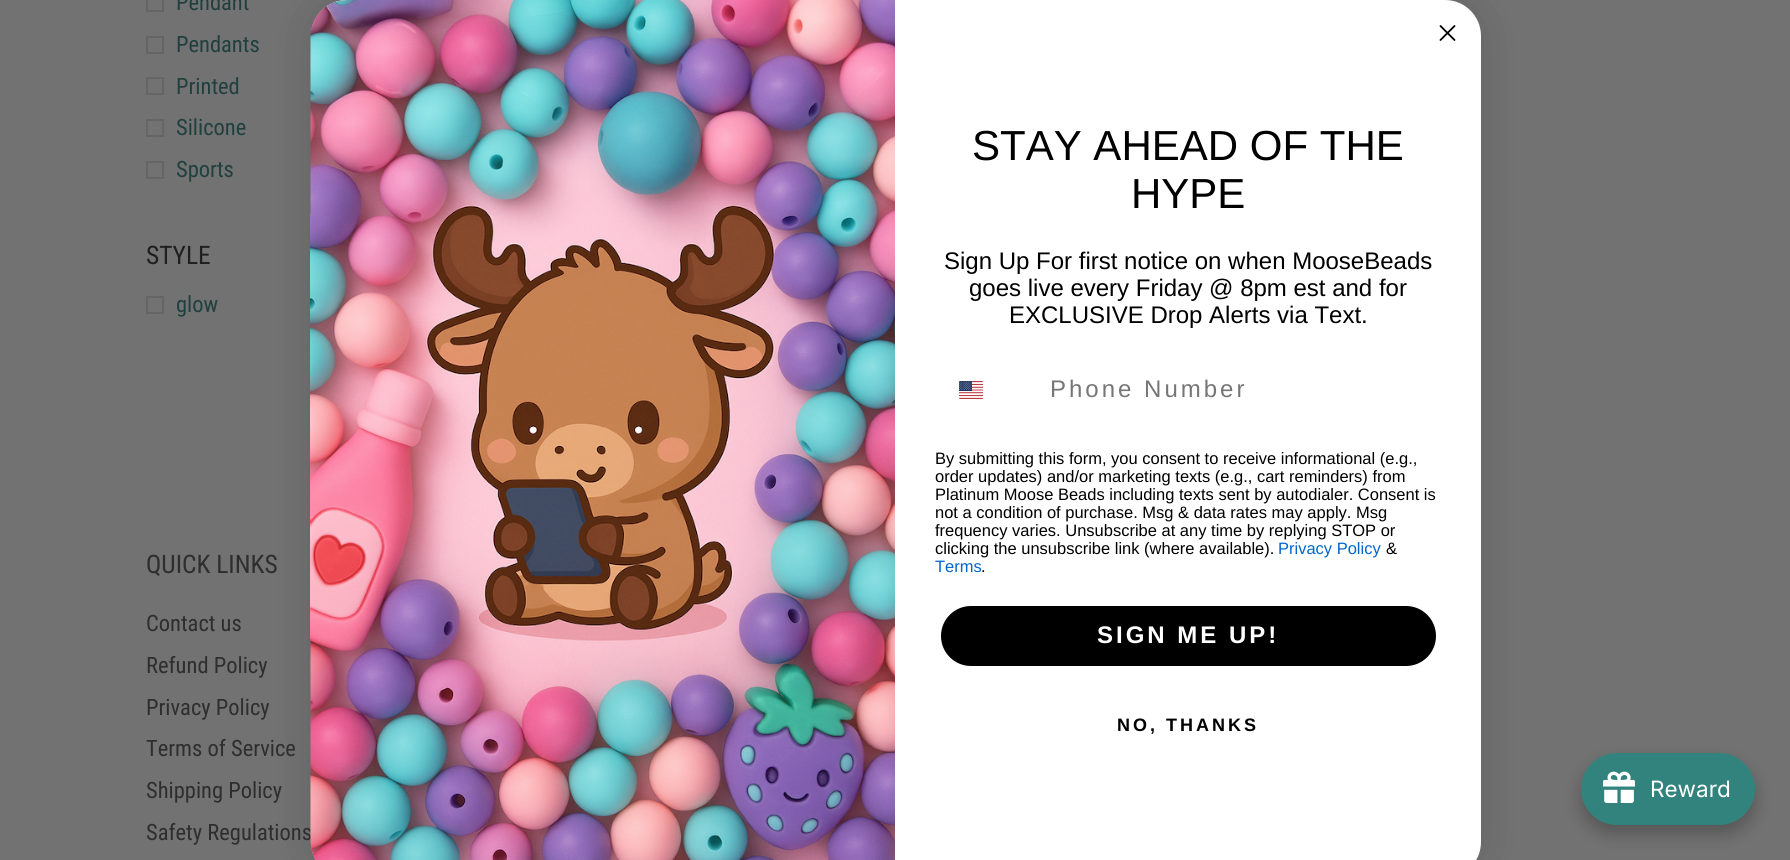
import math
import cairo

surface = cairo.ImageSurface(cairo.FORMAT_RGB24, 1790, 860)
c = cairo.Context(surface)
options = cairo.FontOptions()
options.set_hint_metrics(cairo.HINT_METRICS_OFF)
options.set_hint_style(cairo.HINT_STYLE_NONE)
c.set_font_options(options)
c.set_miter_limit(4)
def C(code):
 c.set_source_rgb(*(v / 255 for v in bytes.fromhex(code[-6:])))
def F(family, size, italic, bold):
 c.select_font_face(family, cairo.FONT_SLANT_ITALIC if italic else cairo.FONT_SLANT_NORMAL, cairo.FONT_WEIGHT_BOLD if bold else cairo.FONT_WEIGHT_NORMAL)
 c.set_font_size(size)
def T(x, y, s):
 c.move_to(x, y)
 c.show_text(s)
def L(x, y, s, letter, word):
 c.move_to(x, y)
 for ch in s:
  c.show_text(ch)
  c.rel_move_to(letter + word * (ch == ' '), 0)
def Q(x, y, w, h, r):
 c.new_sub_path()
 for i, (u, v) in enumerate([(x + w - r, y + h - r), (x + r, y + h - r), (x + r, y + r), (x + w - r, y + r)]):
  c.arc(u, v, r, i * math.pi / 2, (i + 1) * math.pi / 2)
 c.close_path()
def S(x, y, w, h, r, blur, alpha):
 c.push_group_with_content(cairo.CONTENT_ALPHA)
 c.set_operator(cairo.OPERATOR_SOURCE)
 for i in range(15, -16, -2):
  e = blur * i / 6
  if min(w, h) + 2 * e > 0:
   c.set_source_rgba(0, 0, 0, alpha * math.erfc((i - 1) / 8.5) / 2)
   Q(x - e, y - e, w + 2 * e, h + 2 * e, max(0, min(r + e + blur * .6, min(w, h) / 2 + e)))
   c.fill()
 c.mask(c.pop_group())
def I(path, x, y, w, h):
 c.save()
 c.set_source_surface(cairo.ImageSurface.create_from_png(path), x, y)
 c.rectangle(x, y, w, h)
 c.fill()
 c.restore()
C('727272')
c.paint()
c.rectangle(147,-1,16,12)
C('656565')
c.stroke()
F('Roboto Condensed',22.5,0,0)
C('20403e')
T(176,10,'Pendant')
c.rectangle(147,37,16,16)
C('656565')
c.stroke()
C('20403e')
T(176,52,'Pendants')
c.rectangle(147,78,16,16)
C('656565')
c.stroke()
C('20403e')
T(176,94,'Printed')
c.rectangle(147,120,16,16)
C('656565')
c.stroke()
C('20403e')
T(176,135,'Silicone')
c.rectangle(147,162,16,16)
C('656565')
c.stroke()
C('20403e')
T(176,177,'Sports')
F('Roboto Condensed',25.5,0,0)
C('1f1f1f')
T(146,264,'STYLE')
c.rectangle(147,297,16,16)
C('656565')
c.stroke()
F('Roboto Condensed',22.5,0,0)
C('20403e')
T(176,312,'glow')
C('000000')
S(311,0,1170,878,36,22.5,.15)
C('ffffff')
Q(311,0,1170,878,36)
c.fill()
c.new_path()
c.move_to(1440.5,26)
c.line_to(1454.5,40)
c.move_to(1440.5,40)
c.line_to(1454.5,26)
c.close_path()
C('000000')
c.set_line_width(1.8)
c.set_line_cap(cairo.LINE_CAP_ROUND)
c.set_line_join(cairo.LINE_JOIN_ROUND)
c.stroke()
C('2e2e2e')
T(146,840,'Safety Regulations')
I('1.png',310,0,585,860)
F('Liberation Sans',42,0,0)
C('000000')
T(972,160,'STAY AHEAD OF THE')
T(1131,208,'HYPE')
F('Liberation Sans',24,0,0)
T(944,269,'Sign Up For first notice on when MooseBeads')
T(969,296,'goes live every Friday @ 8pm est and for')
T(1009,323,'EXCLUSIVE Drop Alerts via Text.')
I('2.png',959,381,24,18)
C('767676')
L(1050,397,'Phone Number',3,0)
F('Liberation Sans',16.5,0,0)
C('000000')
T(935,464,'By submitting this form, you consent to receive informational (e.g.,')
T(935,482,'order updates) and/or marketing texts (e.g., cart reminders) from')
T(935,500,'Platinum Moose Beads including texts sent by autodialer. Consent is')
T(935,518,'not a condition of purchase. Msg & data rates may apply. Msg')
T(935,536,'frequency varies. Unsubscribe at any time by replying STOP or')
T(935,554,'clicking the unsubscribe link (where available).')
C('0066cc')
T(1278,554,'Privacy Policy')
C('000000')
T(1386,554,'&')
C('0066cc')
T(935,572,'Terms')
C('000000')
T(981,572,'.')
Q(941,606,495,60,30)
c.fill()
F('Liberation Sans',24,0,1)
C('ffffff')
L(1097,643,'SIGN ME UP!',3,0)
F('Liberation Sans',18,0,1)
C('000000')
L(1117,731,'NO, THANKS',3,0)
F('Roboto Condensed',25.5,0,0)
C('2e2e2e')
T(146,573,'QUICK LINKS')
F('Roboto Condensed',22.5,0,0)
T(146,631,'Contact us')
T(146,673,'Refund Policy')
T(146,715,'Privacy Policy')
T(146,756,'Terms of Service')
T(146,798,'Shipping Policy')
C('000000')
S(1581,762,174,72,36,9,.25)
C('32837e')
Q(1581,753,174,72,36)
c.fill()
I('3.png',1603,771,32,32)
F('Inter',22.5,0,0)
C('ffffff')
T(1650,797,'Reward')
surface.write_to_png('o.png')
